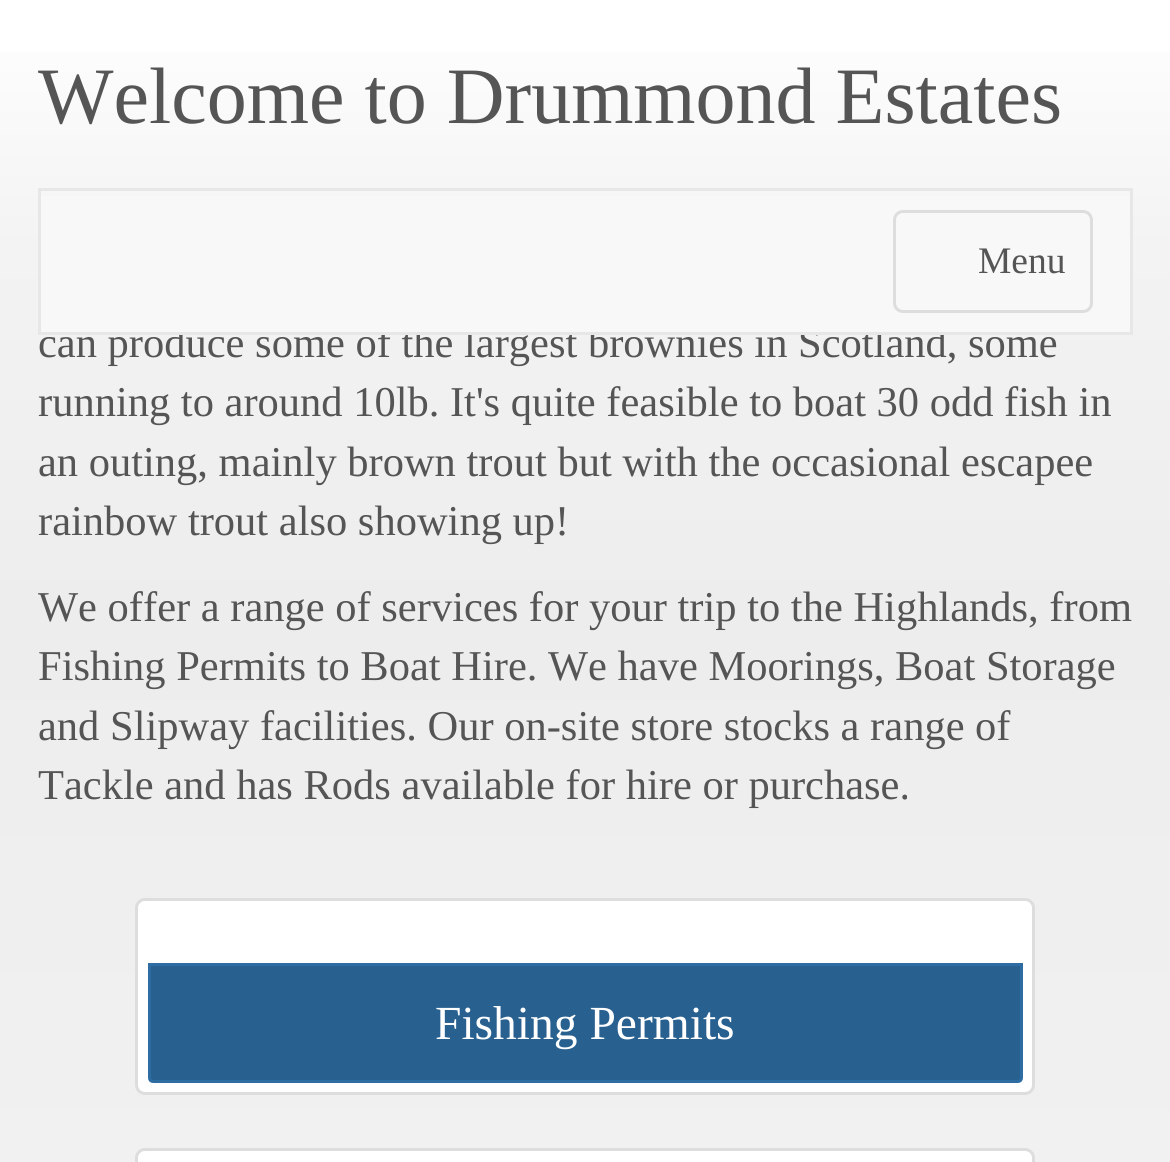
import math
import cairo

surface = cairo.ImageSurface(cairo.FORMAT_RGB24, 1170, 1162)
c = cairo.Context(surface)
options = cairo.FontOptions()
options.set_hint_metrics(cairo.HINT_METRICS_OFF)
options.set_hint_style(cairo.HINT_STYLE_NONE)
c.set_font_options(options)
c.set_miter_limit(4)
def C(code):
 c.set_source_rgb(*(v / 255 for v in bytes.fromhex(code[-6:])))
def F(family, size, italic, bold):
 c.select_font_face(family, cairo.FONT_SLANT_ITALIC if italic else cairo.FONT_SLANT_NORMAL, cairo.FONT_WEIGHT_BOLD if bold else cairo.FONT_WEIGHT_NORMAL)
 c.set_font_size(size)
def T(x, y, s):
 c.move_to(x, y)
 c.show_text(s)
def R(x, y, w, h):
 c.rectangle(x, y, w, h)
 c.fill()
def Q(x, y, w, h, r):
 c.new_sub_path()
 for i, (u, v) in enumerate([(x + w - r, y + h - r), (x + r, y + h - r), (x + r, y + r), (x + w - r, y + r)]):
  c.arc(u, v, r, i * math.pi / 2, (i + 1) * math.pi / 2)
 c.close_path()
C('ffffff')
c.paint()
gradient = cairo.LinearGradient(585,0,585,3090)
gradient.add_color_stop_rgba(0,1,1,1,1)
gradient.add_color_stop_rgba(.08,0.953,0.953,0.953,1)
gradient.add_color_stop_rgba(.2,0.929,0.929,0.929,1)
gradient.add_color_stop_rgba(1,1,1,1,1)
c.set_source(gradient)
R(0,52,1170,1110)
F('Liberation Serif',80,0,0)
C('555555')
T(38,123,'Welcome to Drummond Estates')
F('Liberation Serif',42.5,0,0)
T(38,357,'can produce some of the largest brownies in Scotland, some')
T(38,416,'running to around 10lb. It\'s quite feasible to boat 30 odd fish in')
T(38,476,'an outing, mainly brown trout but with the occasional escapee')
T(38,535,'rainbow trout also showing up!')
T(38,621,'We offer a range of services for your trip to the Highlands, from')
T(38,680,'Fishing Permits to Boat Hire. We have Moorings, Boat Storage')
T(38,740,'and Slipway facilities. Our on-site store stocks a range of')
T(38,799,'Tackle and has Rods available for hire or purchase.')
C('ffffff')
Q(136.5,899.5,897,194,8.5)
c.fill_preserve()
C('dddddd')
c.set_line_width(3)
c.stroke()
C('286090')
c.new_path()
c.move_to(149.5,964.5)
c.line_to(1021.5,964.5)
c.line_to(1021.5,1078)
c.curve_to(1021.5,1080,1020,1081.5,1018,1081.5)
c.line_to(153,1081.5)
c.curve_to(151,1081.5,149.5,1080,149.5,1078)
c.close_path()
c.fill_preserve()
C('2e6da4')
c.stroke()
F('Liberation Serif',47.5,0,0)
C('ffffff')
T(435,1039,'Fishing Permits')
Q(136.5,1149.5,897,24,8.5)
c.fill_preserve()
C('dddddd')
c.stroke()
C('f8f8f8')
R(41,196,1089,136)
c.rectangle(39.5,189.5,1092,144)
C('e7e7e7')
c.stroke()
Q(894.5,211.5,197,100,8.5)
C('dddddd')
c.stroke()
F('Liberation Serif',37.5,0,0)
C('555555')
T(978,273,'Menu')
surface.write_to_png('o.png')
